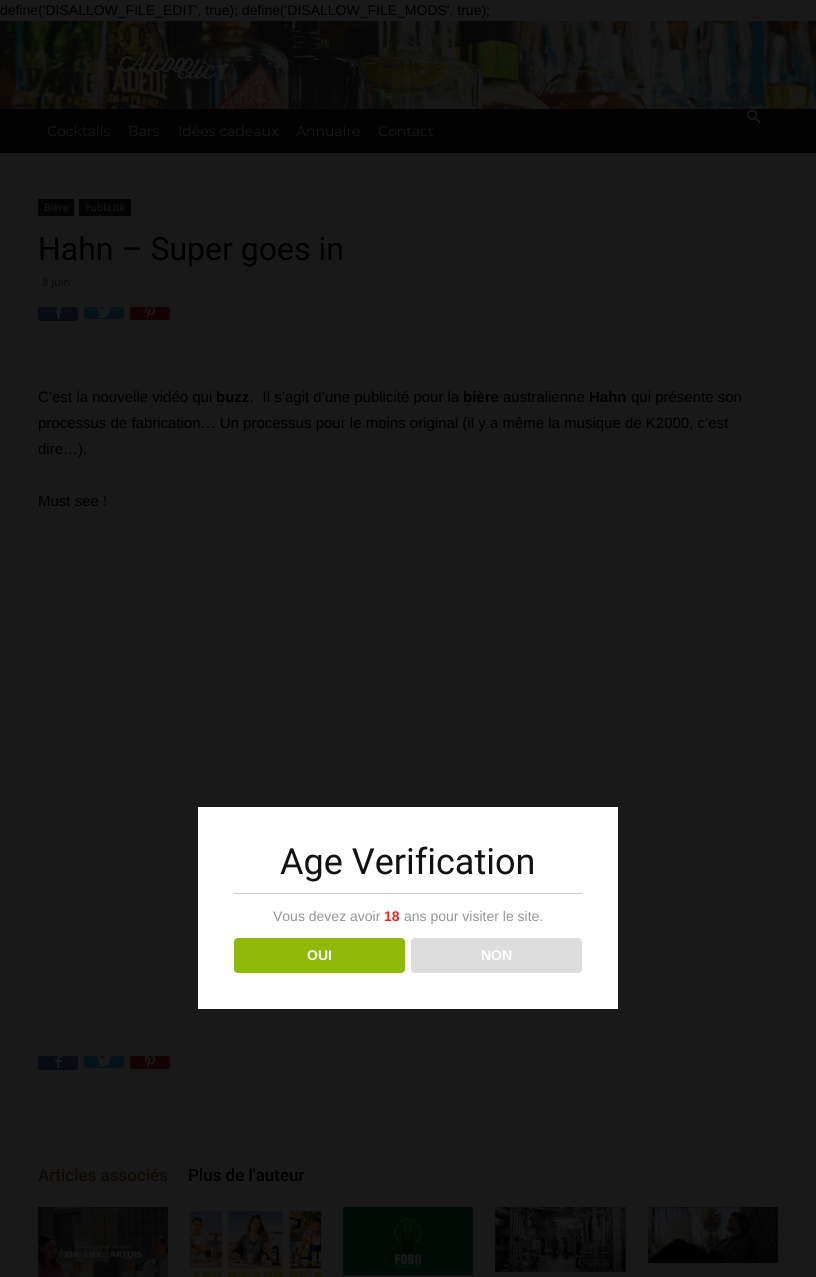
import math
import cairo

surface = cairo.ImageSurface(cairo.FORMAT_RGB24, 816, 1277)
c = cairo.Context(surface)
options = cairo.FontOptions()
options.set_hint_metrics(cairo.HINT_METRICS_OFF)
options.set_hint_style(cairo.HINT_STYLE_NONE)
c.set_font_options(options)
c.set_miter_limit(4)
def C(code):
 c.set_source_rgb(*(v / 255 for v in bytes.fromhex(code[-6:])))
def F(family, size, italic, bold):
 c.select_font_face(family, cairo.FONT_SLANT_ITALIC if italic else cairo.FONT_SLANT_NORMAL, cairo.FONT_WEIGHT_BOLD if bold else cairo.FONT_WEIGHT_NORMAL)
 c.set_font_size(size)
def T(x, y, s):
 c.move_to(x, y)
 c.show_text(s)
def R(x, y, w, h):
 c.rectangle(x, y, w, h)
 c.fill()
def Q(x, y, w, h, r):
 c.new_sub_path()
 for i, (u, v) in enumerate([(x + w - r, y + h - r), (x + r, y + h - r), (x + r, y + r), (x + w - r, y + r)]):
  c.arc(u, v, r, i * math.pi / 2, (i + 1) * math.pi / 2)
 c.close_path()
def I(path, x, y, w, h):
 c.save()
 c.set_source_surface(cairo.ImageSurface.create_from_png(path), x, y)
 c.rectangle(x, y, w, h)
 c.fill()
 c.restore()
C('191919')
c.paint()
F('Liberation Sans',14,0,0)
C('000000')
T(0,15,'define(\'DISALLOW_FILE_EDIT\', true); define(\'DISALLOW_FILE_MODS\', true);')
I('1.png',0,21,816,88)
I('2.png',119,52,110,28)
C('020202')
R(0,109,816,44)
I('3.png',747,109,14,15)
F('Montserrat',14,0,0)
C('191919')
T(47,136,'Cocktails')
T(128,136,'Bars')
T(178,136,'Idées cadeaux')
T(296,136,'Annuaire')
T(378,136,'Contact')
I('4.png',0,153,816,9)
I('5.png',85,177,3,5)
I('5.png',134,177,3,5)
C('030303')
R(38,199,36,17)
F('Open Sans',10,0,0)
C('191919')
T(44,211,'Bière')
C('030303')
R(79,199,52,17)
C('191919')
T(85,211,'Publicité')
F('Roboto',32,0,0)
C('000000')
T(38,260,'Hahn – Super goes in')
F('Open Sans',11,0,0)
C('070707')
T(42,286,'8 juin')
C('080b11')
Q(38,307,40,14,2)
c.fill()
I('6.png',55,307,7,13)
C('041419')
Q(84,307,40,12,2)
c.fill()
I('7.png',97,307,15,11)
C('140304')
Q(130,307,40,13,2)
c.fill()
I('8.png',145,307,11,12)
F('Liberation Sans',15,0,0)
C('000000')
T(38,402,'C’est la nouvelle vidéo qui')
F('Liberation Sans',15,0,1)
T(216,402,'buzz')
F('Liberation Sans',15,0,0)
T(250,402,'.  Il s’agit d’une publicité pour la')
F('Liberation Sans',15,0,1)
T(463,402,'bière')
F('Liberation Sans',15,0,0)
T(503,402,'australienne')
F('Liberation Sans',15,0,1)
T(589,402,'Hahn')
F('Liberation Sans',15,0,0)
T(631,402,'qui présente son')
T(38,428,'processus de fabrication… Un processus pour le moins original (il y a même la musique de K2000, c’est')
T(38,454,'dire…).')
T(38,506,'Must see !')
C('080b11')
Q(38,1056,40,14,2)
c.fill()
I('6.png',55,1056,7,13)
C('041419')
Q(84,1056,40,12,2)
c.fill()
I('7.png',97,1056,15,11)
C('140304')
Q(130,1056,40,13,2)
c.fill()
I('8.png',145,1056,11,12)
F('Roboto Medium',17,0,0)
C('0f0a04')
T(38,1181,'Articles associés')
C('000000')
T(188,1181,'Plus de l\'auteur')
I('9.png',38,1207,130,70)
I('10.png',190,1207,131,70)
I('11.png',343,1207,130,68)
I('12.png',495,1207,131,65)
I('13.png',648,1207,130,56)
C('ffffff')
R(198,807,420,202)
C('cccccc')
R(234,893,348,1)
F('Roboto',36,0,0)
C('111111')
T(280,874,'Age Verification')
F('Liberation Sans',14,0,0)
C('959595')
T(273,921,'Vous devez avoir')
F('Liberation Sans',14,0,1)
C('ff1f1f')
T(384,921,'18')
F('Liberation Sans',14,0,0)
C('959595')
T(404,921,'ans pour visiter le site.')
C('8eb908')
Q(234,938,171,35,4)
c.fill()
F('Liberation Sans',14,0,1)
C('ffffff')
T(307,960,'OUI')
C('dddddd')
Q(411,938,171,35,4)
c.fill()
C('ffffff')
T(481,960,'NON')
surface.write_to_png('o.png')
